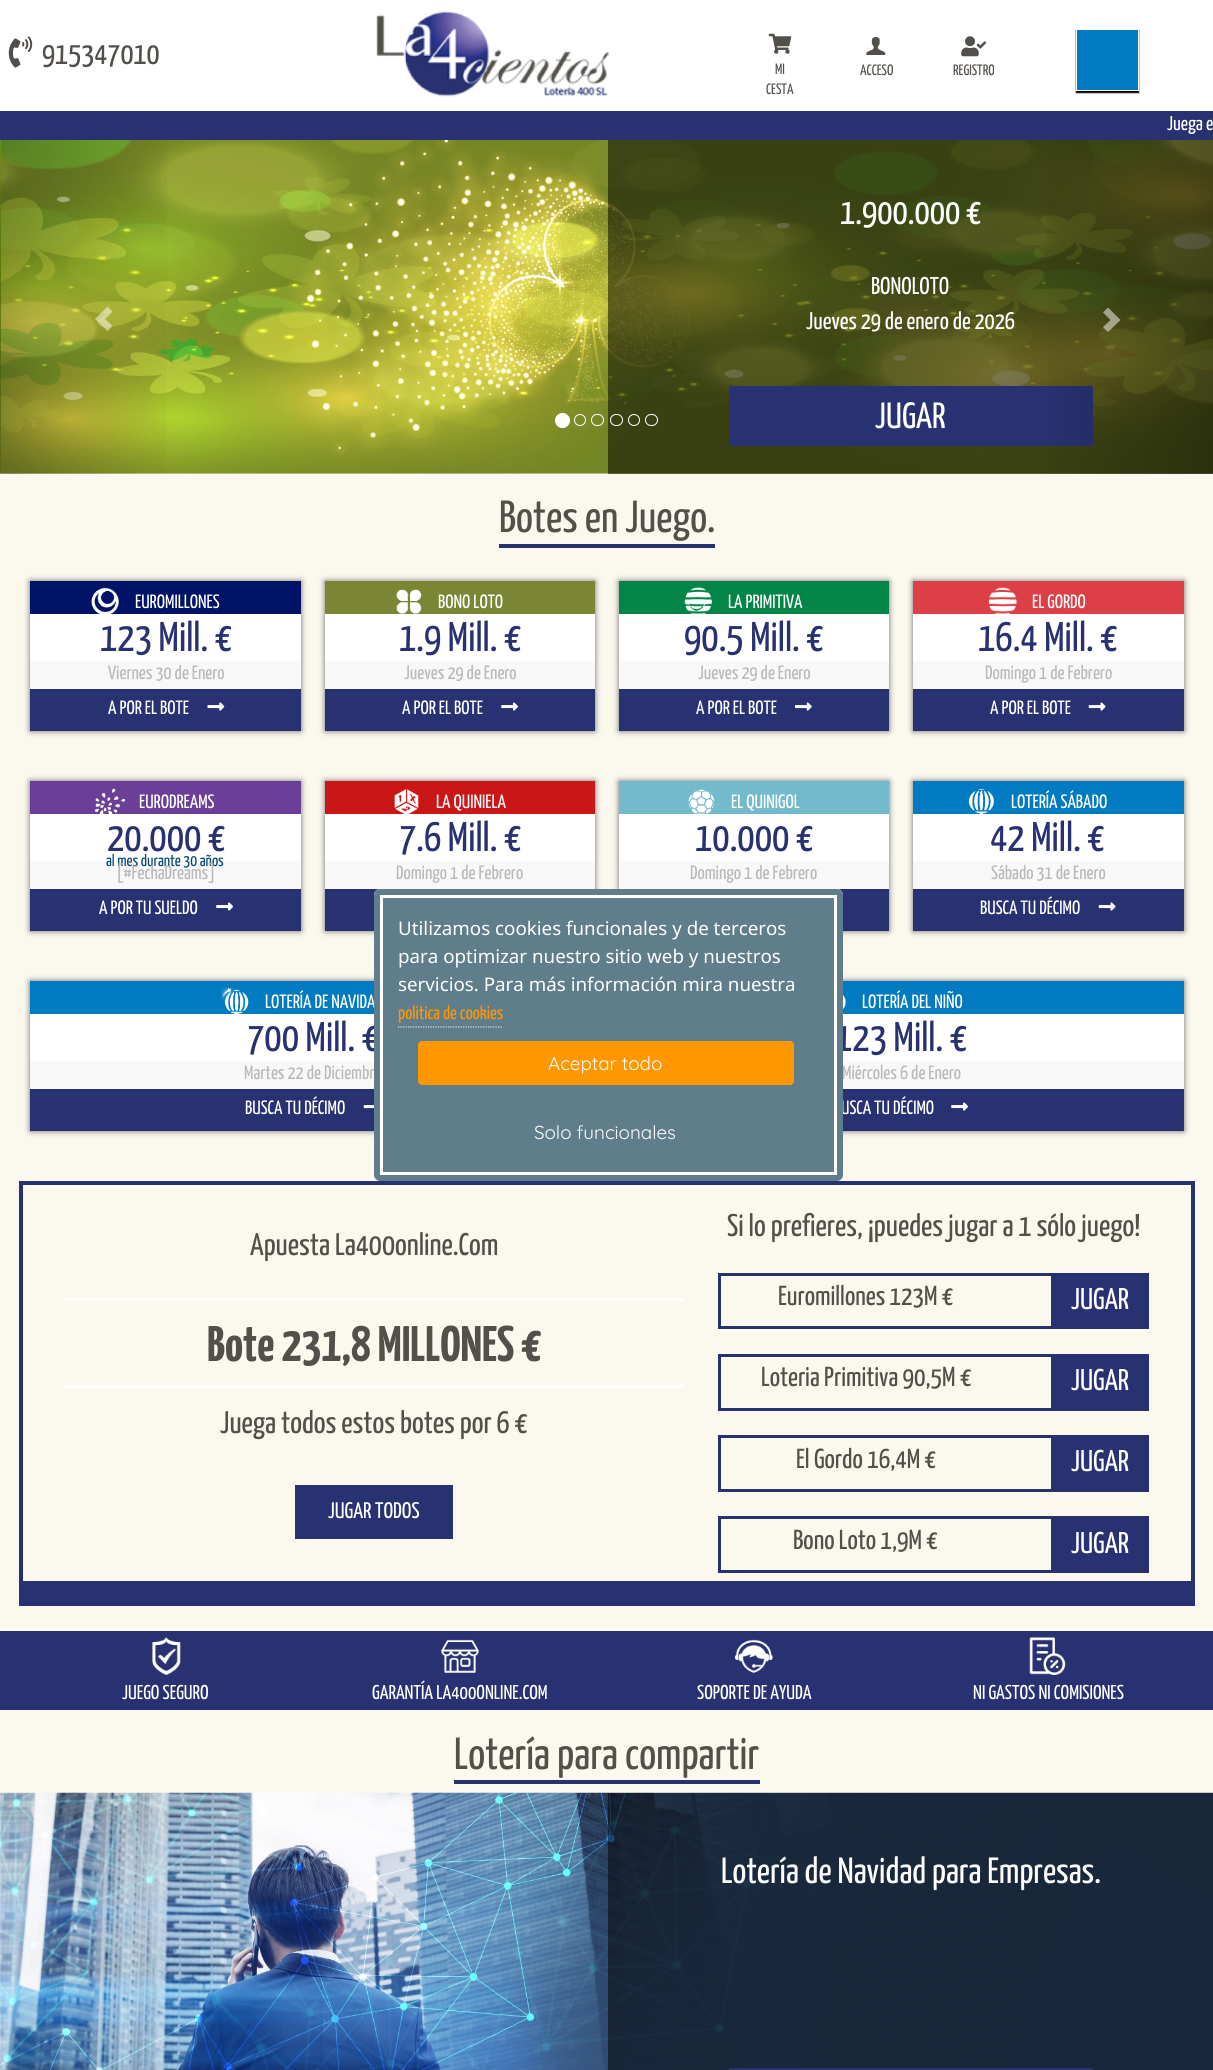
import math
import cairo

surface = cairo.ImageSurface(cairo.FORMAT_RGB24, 1213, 2070)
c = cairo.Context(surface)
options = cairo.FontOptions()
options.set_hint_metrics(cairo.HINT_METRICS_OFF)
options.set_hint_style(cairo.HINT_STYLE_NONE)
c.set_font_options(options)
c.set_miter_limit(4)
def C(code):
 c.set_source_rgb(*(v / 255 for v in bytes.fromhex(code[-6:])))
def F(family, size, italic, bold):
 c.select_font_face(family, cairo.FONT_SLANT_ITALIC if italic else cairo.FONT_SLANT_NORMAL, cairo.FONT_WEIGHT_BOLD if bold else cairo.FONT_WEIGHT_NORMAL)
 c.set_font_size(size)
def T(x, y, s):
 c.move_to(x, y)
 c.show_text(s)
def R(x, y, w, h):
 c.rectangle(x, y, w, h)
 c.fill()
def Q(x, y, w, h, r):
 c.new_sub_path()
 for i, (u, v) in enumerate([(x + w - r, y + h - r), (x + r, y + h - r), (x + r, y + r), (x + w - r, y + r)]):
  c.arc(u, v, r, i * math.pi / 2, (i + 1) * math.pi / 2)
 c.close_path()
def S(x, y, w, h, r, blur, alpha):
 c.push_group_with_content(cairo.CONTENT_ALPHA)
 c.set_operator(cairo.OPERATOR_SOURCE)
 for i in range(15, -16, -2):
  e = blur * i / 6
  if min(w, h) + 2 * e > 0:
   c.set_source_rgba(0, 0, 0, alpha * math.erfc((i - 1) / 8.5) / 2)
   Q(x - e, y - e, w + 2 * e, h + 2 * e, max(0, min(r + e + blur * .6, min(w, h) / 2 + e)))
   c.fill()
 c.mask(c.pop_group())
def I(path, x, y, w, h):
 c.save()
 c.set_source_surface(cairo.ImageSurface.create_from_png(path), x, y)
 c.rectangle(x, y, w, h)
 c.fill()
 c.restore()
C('fbf8ee')
c.paint()
C('ffffff')
R(0,0,1213,111)
I('1.png',8,36,25,32)
F('Yanone Kaffeesatz',31.25,0,0)
C('534f4b')
T(42,64,'915347010')
I('2.png',376,11,234,86)
I('3.png',768,33,24,21)
F('Yanone Kaffeesatz',15,0,0)
T(775,74,'MI')
T(766,94,'CESTA')
I('4.png',866,37,20,18)
T(860,75,'ACCESO')
I('5.png',961,36,26,21)
T(953,75,'REGISTRO')
C('000000')
S(1076,30,63,63,0,.5,1)
C('007ac0')
c.rectangle(1076.5,29.5,62,61)
c.fill_preserve()
C('ffffff')
c.set_line_width(1)
c.stroke()
C('283272')
R(0,111,1213,29)
F('Yanone Kaffeesatz',20,0,0)
C('ffffff')
T(1167,130,'Juega e')
I('6.png',0,140,1213,334)
gradient = cairo.LinearGradient(0,306,183,306)
gradient.add_color_stop_rgba(0,0,0,0,.25)
gradient.add_color_stop_rgba(1,0,0,0,0)
c.set_source(gradient)
R(0,140,167,334)
c.set_source_rgba(1,1,1,0.5)
c.new_path()
c.move_to(95,319)
c.line_to(107.5,331)
c.line_to(112.5,326)
c.line_to(105,319)
c.line_to(112.5,311.5)
c.line_to(107.5,306.5)
c.close_path()
c.fill()
C('ffffff')
c.arc(562.5,420.5,7,0,2 * math.pi)
c.fill_preserve()
c.stroke()
c.arc(580,420,5.5,0,2 * math.pi)
c.stroke()
Q(591.5,414.5,12,11,5.5)
c.stroke()
c.set_source_rgba(0,0,0,0.51)
R(608,140,605,334)
Q(610.5,414.5,12,11,5.5)
C('ffffff')
c.stroke()
c.arc(634,420,5.5,0,2 * math.pi)
c.stroke()
Q(645.5,414.5,12,11,5.5)
c.stroke()
F('Yanone Kaffeesatz',36.5,0,0)
T(840,224,'1.900.000 €')
F('Yanone Kaffeesatz',24.25,0,0)
T(871,294,'BONOLOTO')
T(806,329,'Jueves 29 de enero de 2026')
C('283272')
R(729,386,364,60)
F('Yanone Kaffeesatz',36.5,0,0)
C('ffffff')
T(875,428,'JUGAR')
gradient = cairo.LinearGradient(1031,306,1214,306)
gradient.add_color_stop_rgba(0,0,0,0,0)
gradient.add_color_stop_rgba(1,0,0,0,.25)
c.set_source(gradient)
R(1047,140,166,334)
c.set_source_rgba(1,1,1,0.5)
c.new_path()
c.move_to(1103,327)
c.line_to(1110.5,320)
c.line_to(1103,312.5)
c.line_to(1108,307.5)
c.line_to(1120.5,320)
c.line_to(1108,332)
c.close_path()
c.fill()
C('283272')
R(499,544,216,4)
F('Yanone Kaffeesatz',45,0,0)
C('534f4b')
T(499,532,'Botes en Juego.')
C('676767')
S(30,581,271,150,0,3,1)
C('001367')
R(30,581,271,33)
I('7.png',91,587,28,27)
F('Yanone Kaffeesatz',19.25,0,0)
C('ffffff')
T(135,608,'EUROMILLONES')
R(30,614,271,47)
F('Yanone Kaffeesatz',41.5,0,0)
C('283272')
T(100,651,'123 Mill. €')
C('f8f8f8')
R(30,661,271,28)
F('Yanone Kaffeesatz',19.25,0,0)
C('b9b9b9')
T(108,679,'Viernes 30 de Enero')
C('283272')
R(30,689,271,42)
C('ffffff')
T(108,714,'A POR EL BOTE')
I('8.png',207,702,18,9)
C('676767')
S(325,581,270,150,0,3,1)
C('7a8633')
R(325,581,270,33)
I('9.png',396,589,26,25)
C('ffffff')
T(438,608,'BONO LOTO')
R(325,614,270,47)
F('Yanone Kaffeesatz',41.5,0,0)
C('283272')
T(399,651,'1.9 Mill. €')
C('f8f8f8')
R(325,661,270,28)
F('Yanone Kaffeesatz',19.25,0,0)
C('b9b9b9')
T(404,679,'Jueves 29 de Enero')
C('283272')
R(325,689,270,42)
C('ffffff')
T(402,714,'A POR EL BOTE')
I('10.png',501,702,17,9)
C('676767')
S(619,581,270,150,0,3,1)
C('038547')
R(619,581,270,33)
I('11.png',684,587,28,27)
C('ffffff')
T(728,608,'LA PRIMITIVA')
R(619,614,270,47)
F('Yanone Kaffeesatz',41.5,0,0)
C('283272')
T(684,651,'90.5 Mill. €')
C('f8f8f8')
R(619,661,270,28)
F('Yanone Kaffeesatz',19.25,0,0)
C('b9b9b9')
T(698,679,'Jueves 29 de Enero')
C('283272')
R(619,689,270,42)
C('ffffff')
T(696,714,'A POR EL BOTE')
I('12.png',795,702,17,9)
C('676767')
S(913,581,271,150,0,3,1)
C('dc3f46')
R(913,581,271,33)
I('13.png',988,587,29,27)
C('ffffff')
T(1032,608,'EL GORDO')
R(913,614,271,47)
F('Yanone Kaffeesatz',41.5,0,0)
C('283272')
T(978,651,'16.4 Mill. €')
C('f8f8f8')
R(913,661,271,28)
F('Yanone Kaffeesatz',19.25,0,0)
C('b9b9b9')
T(985,679,'Domingo 1 de Febrero')
C('283272')
R(913,689,271,42)
C('ffffff')
T(990,714,'A POR EL BOTE')
I('14.png',1088,702,18,9)
C('676767')
S(30,781,271,150,0,3,1)
C('6b3e98')
R(30,781,271,33)
I('15.png',95,788,30,26)
C('ffffff')
T(139,808,'EURODREAMS')
R(30,814,271,47)
F('Yanone Kaffeesatz',41.5,0,0)
C('283272')
T(107,851,'20.000 €')
C('f8f8f8')
R(30,861,271,28)
F('Yanone Kaffeesatz',16.5,0,0)
C('094a71')
T(106,866,'al mes durante 30 años')
F('Yanone Kaffeesatz',19.25,0,0)
C('b9b9b9')
T(116,879,'[#FechaDreams]')
C('283272')
R(30,889,271,42)
C('ffffff')
T(99,914,'A POR TU SUELDO')
I('10.png',216,902,17,9)
C('676767')
S(325,781,270,150,0,3,1)
C('cb1617')
R(325,781,270,33)
I('16.png',394,789,25,25)
C('ffffff')
T(436,808,'LA QUINIELA')
R(325,814,270,47)
F('Yanone Kaffeesatz',41.5,0,0)
C('283272')
T(399,851,'7.6 Mill. €')
C('f8f8f8')
R(325,861,270,28)
F('Yanone Kaffeesatz',19.25,0,0)
C('b9b9b9')
T(396,879,'Domingo 1 de Febrero')
C('283272')
R(325,889,55,42)
C('676767')
S(619,781,270,150,0,3,1)
C('74bacd')
R(619,781,270,33)
I('17.png',688,789,27,25)
C('ffffff')
T(731,808,'EL QUINIGOL')
R(619,814,270,47)
F('Yanone Kaffeesatz',41.5,0,0)
C('283272')
T(695,851,'10.000 €')
C('f8f8f8')
R(619,861,270,28)
F('Yanone Kaffeesatz',19.25,0,0)
C('b9b9b9')
T(690,879,'Domingo 1 de Febrero')
C('283272')
R(837,889,52,42)
C('676767')
S(913,781,271,150,0,3,1)
C('007ac1')
R(913,781,271,33)
I('18.png',968,788,27,26)
C('ffffff')
T(1011,808,'LOTERÍA SÁBADO')
R(913,814,271,47)
F('Yanone Kaffeesatz',41.5,0,0)
C('283272')
T(990,851,'42 Mill. €')
C('f8f8f8')
R(913,861,271,28)
F('Yanone Kaffeesatz',19.25,0,0)
C('b9b9b9')
T(991,879,'Sábado 31 de Enero')
C('283272')
R(913,889,271,42)
C('ffffff')
T(980,914,'BUSCA TU DÉCIMO')
I('14.png',1098,902,18,9)
C('676767')
S(30,981,565,150,0,3,1)
C('007ac1')
R(30,981,344,33)
I('19.png',221,987,28,27)
C('ffffff')
T(265,1008,'LOTERÍA DE NAVIDA')
R(30,1014,344,47)
F('Yanone Kaffeesatz',41.5,0,0)
C('283272')
T(247,1051,'700 Mill. €')
C('f8f8f8')
R(30,1061,344,28)
F('Yanone Kaffeesatz',19.25,0,0)
C('b9b9b9')
T(244,1079,'Martes 22 de Diciembr')
C('283272')
R(30,1089,344,42)
C('ffffff')
T(245,1114,'BUSCA TU DÉCIMO')
I('20.png',363,1105,11,4)
C('676767')
S(619,981,565,150,0,3,1)
C('007ac1')
R(843,981,341,33)
I('21.png',843,995,3,15)
C('ffffff')
T(862,1008,'LOTERÍA DEL NIÑO')
R(843,1014,341,47)
F('Yanone Kaffeesatz',41.5,0,0)
C('283272')
T(835,1051,'123 Mill. €')
C('f8f8f8')
R(843,1061,341,28)
F('Yanone Kaffeesatz',19.25,0,0)
C('b9b9b9')
T(842,1079,'Miércoles 6 de Enero')
C('283272')
R(843,1089,341,42)
C('ffffff')
T(841,1114,'USCA TU DÉCIMO')
I('10.png',951,1102,17,9)
C('283272')
R(19,1181,1176,4)
R(1191,1181,4,400)
R(23,1581,1172,25)
R(19,1181,4,425)
F('Yanone Kaffeesatz',31.25,0,0)
C('534f4b')
T(250,1255,'Apuesta La400online.Com')
C('fffefd')
R(63,1298,620,3)
C('ffffff')
R(65,1385,618,3)
F('Yanone Kaffeesatz',50,0,1)
C('534f4b')
T(207,1361,'Bote 231,8 MILLONES €')
F('Yanone Kaffeesatz',31.25,0,0)
T(220,1433,'Juega todos estos botes por 6 €')
C('283272')
R(295,1485,158,54)
F('Yanone Kaffeesatz',22.5,0,0)
C('ffffff')
T(328,1518,'JUGAR TODOS')
F('Yanone Kaffeesatz',31.25,0,0)
C('534f4b')
T(727,1236,'Si lo prefieres, ¡puedes jugar a 1 sólo juego!')
C('283272')
R(718,1273,431,3)
R(718,1326,431,3)
R(718,1273,3,56)
F('Yanone Kaffeesatz',27.5,0,0)
C('534f4b')
T(778,1305,'Euromillones 123M €')
C('283272')
R(1051,1276,98,50)
F('Yanone Kaffeesatz',30,0,0)
C('ffffff')
T(1071,1309,'JUGAR')
C('283272')
R(718,1354,431,3)
R(718,1408,431,3)
R(718,1354,3,56)
F('Yanone Kaffeesatz',27.5,0,0)
C('534f4b')
T(761,1386,'Loteria Primitiva 90,5M €')
C('283272')
R(1051,1357,98,51)
F('Yanone Kaffeesatz',30,0,0)
C('ffffff')
T(1071,1390,'JUGAR')
C('283272')
R(718,1435,431,3)
R(718,1489,431,3)
R(718,1435,3,56)
F('Yanone Kaffeesatz',27.5,0,0)
C('534f4b')
T(796,1468,'El Gordo 16,4M €')
C('283272')
R(1051,1438,98,51)
F('Yanone Kaffeesatz',30,0,0)
C('ffffff')
T(1071,1471,'JUGAR')
C('283272')
R(718,1516,431,3)
R(718,1570,431,3)
R(718,1516,3,57)
F('Yanone Kaffeesatz',27.5,0,0)
C('534f4b')
T(793,1549,'Bono Loto 1,9M €')
C('283272')
R(1051,1519,98,51)
F('Yanone Kaffeesatz',30,0,0)
C('ffffff')
T(1071,1553,'JUGAR')
C('283272')
R(0,1631,1213,79)
I('22.png',152,1637,29,38)
F('Yanone Kaffeesatz',20,0,0)
C('ffffff')
T(122,1699,'JUEGO SEGURO')
I('23.png',441,1639,38,34)
T(372,1699,'GARANTÍA LA400ONLINE.COM')
I('24.png',735,1639,38,34)
T(697,1699,'SOPORTE DE AYUDA')
I('25.png',1029,1637,37,38)
T(973,1699,'NI GASTOS NI COMISIONES')
C('283272')
R(454,1780,306,4)
F('Yanone Kaffeesatz',45,0,0)
C('534f4b')
T(454,1769,'Lotería para compartir')
I('26.png',0,1792,1213,278)
c.set_source_rgba(0,0,0,0.51)
R(608,1793,605,277)
F('Yanone Kaffeesatz',36.5,0,0)
C('ffffff')
T(721,1883,'Lotería de Navidad para Empresas.')
C('283272')
R(729,2068,364,2)
C('607d8b')
Q(378.5,893.5,460,283,1.5)
c.fill_preserve()
C('ffffff')
c.set_line_width(9)
c.stroke()
Q(377,892,463,286,3)
C('607d8b')
c.set_line_width(6)
c.stroke()
F('Noto Sans',18.75,0,0)
C('ffffff')
T(398,935,'Utilizamos cookies funcionales y de terceros')
T(398,963,'para optimizar nuestro sitio web y nuestros')
T(398,991,'servicios. Para más información mira nuestra')
F('Yanone Kaffeesatz',18.75,0,0)
C('ff9800')
T(398,1019,'politica de cookies')
c.new_path()
c.move_to(398,1027)
c.line_to(503,1027)
C('d7dfe2')
c.set_line_width(1.2)
c.set_dash([1.25,1.25])
c.stroke()
C('ff9800')
Q(418,1041,376,44,4)
c.fill()
F('Quicksand',18.75,0,0)
C('ffffff')
T(548,1070,'Aceptar todo')
T(534,1139,'Solo funcionales')
surface.write_to_png('o.png')
